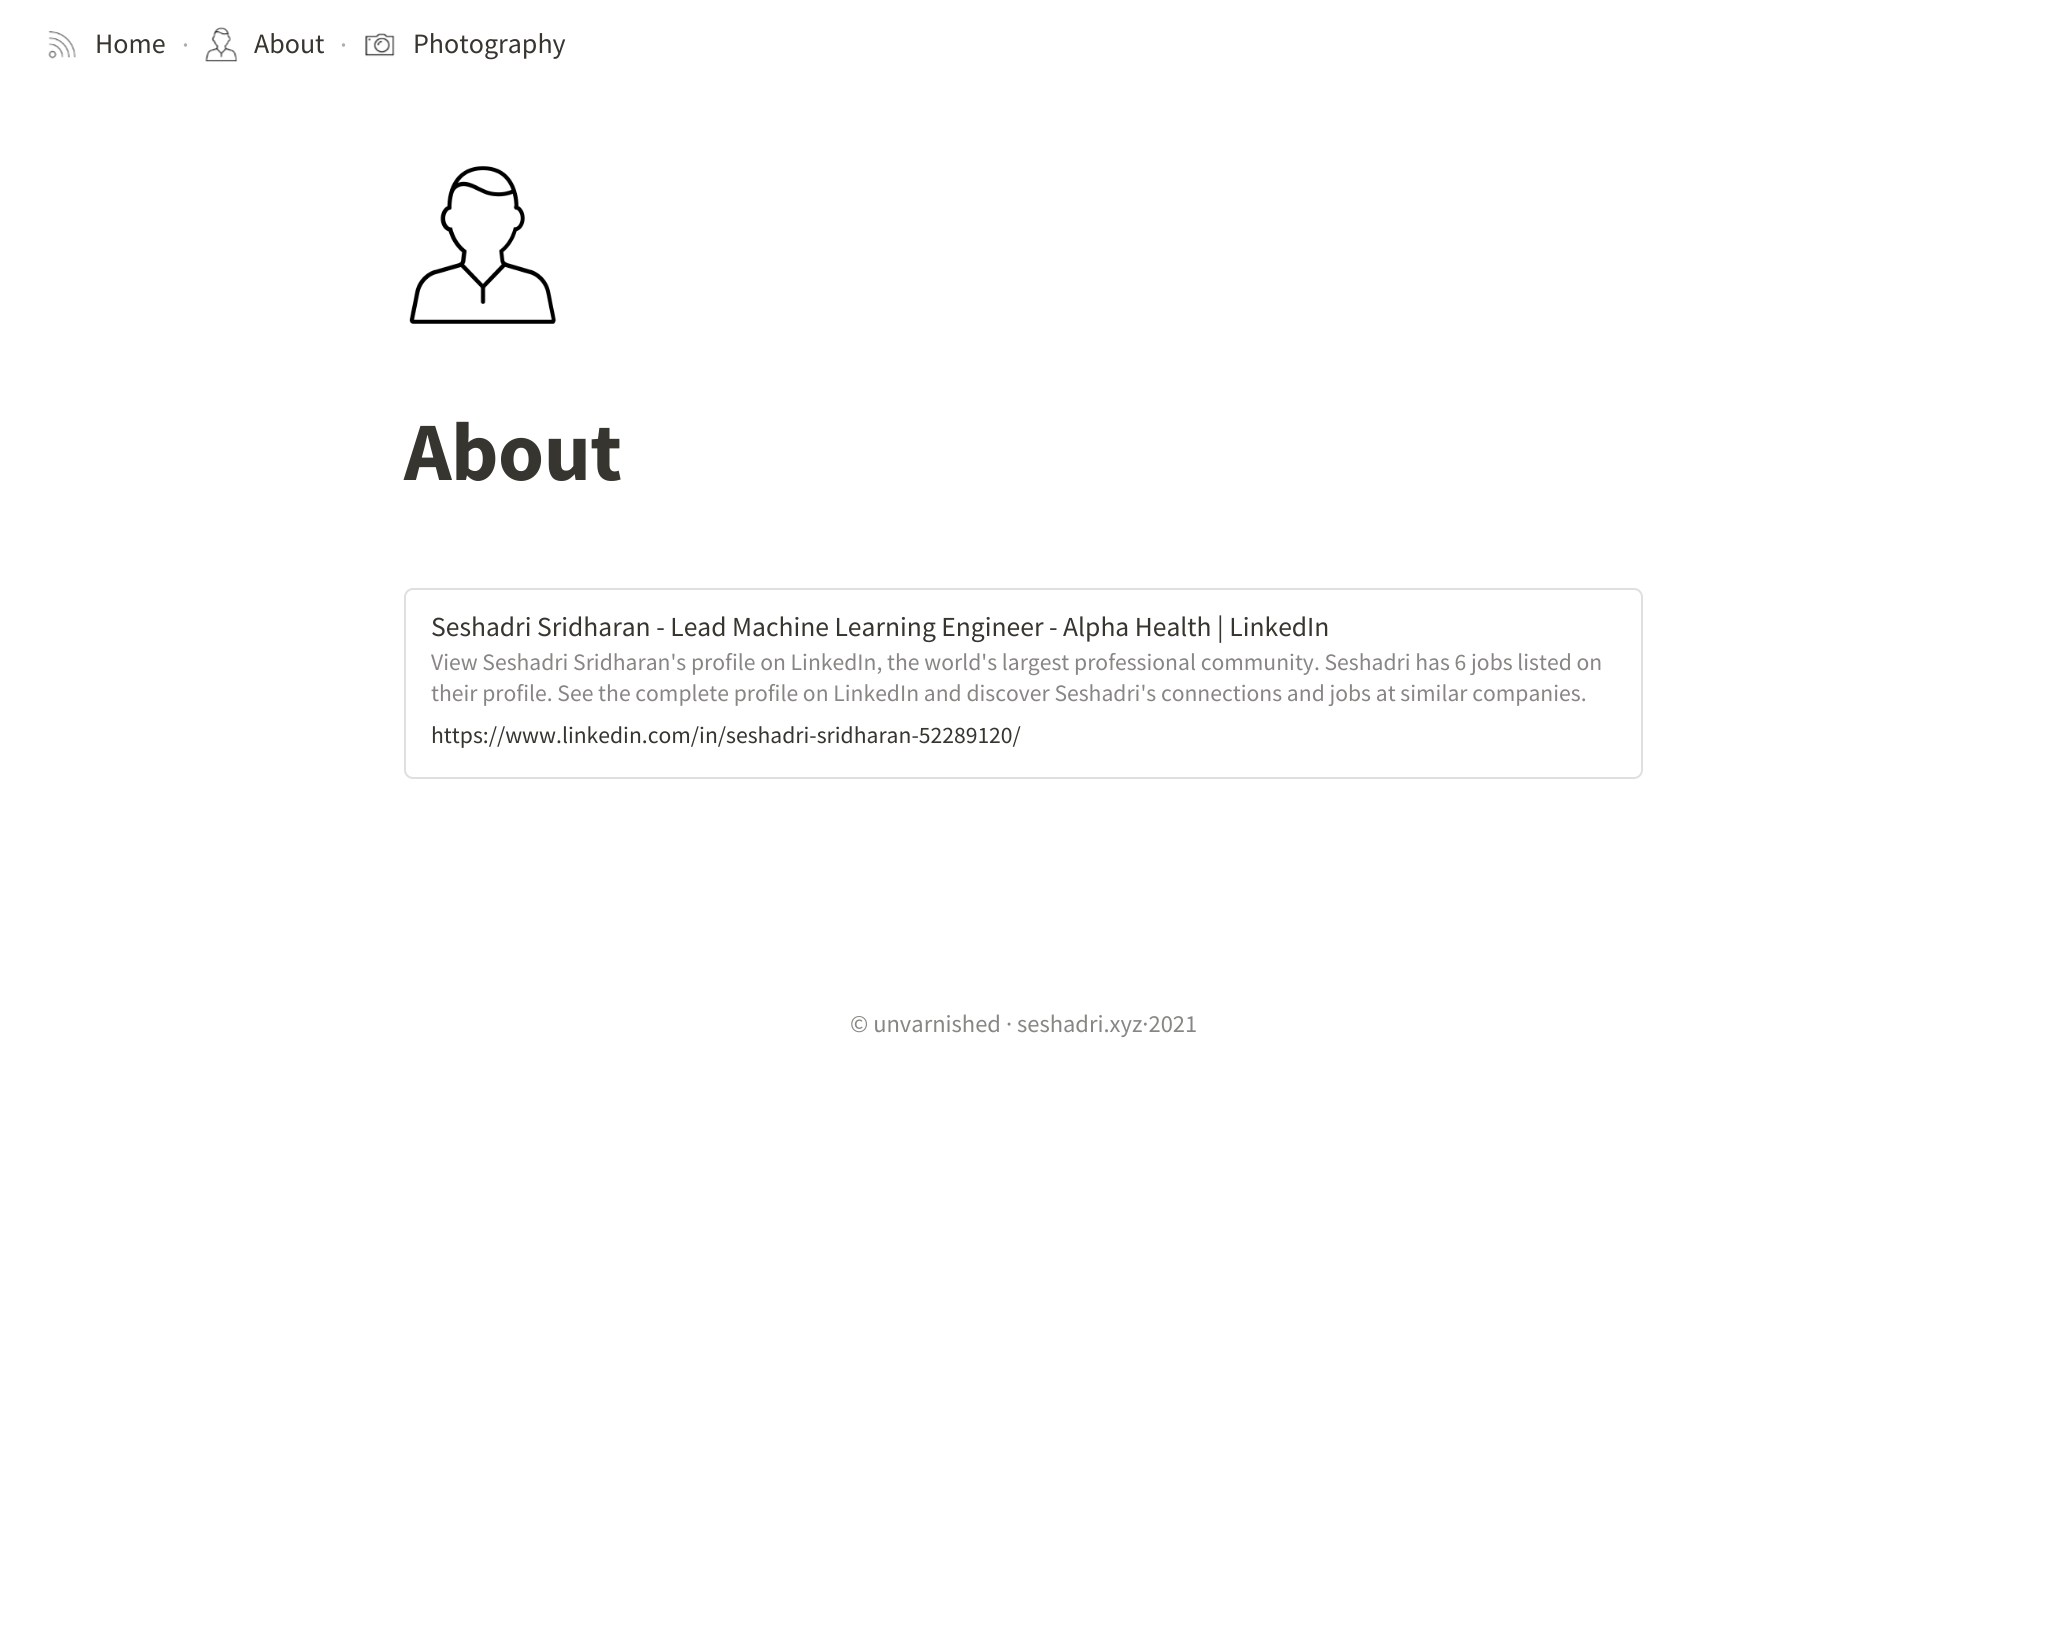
import math
import cairo

surface = cairo.ImageSurface(cairo.FORMAT_RGB24, 2047, 1651)
c = cairo.Context(surface)
options = cairo.FontOptions()
options.set_hint_metrics(cairo.HINT_METRICS_OFF)
options.set_hint_style(cairo.HINT_STYLE_NONE)
c.set_font_options(options)
c.set_miter_limit(4)
def C(code):
 c.set_source_rgb(*(v / 255 for v in bytes.fromhex(code[-6:])))
def F(family, size, italic, bold):
 c.select_font_face(family, cairo.FONT_SLANT_ITALIC if italic else cairo.FONT_SLANT_NORMAL, cairo.FONT_WEIGHT_BOLD if bold else cairo.FONT_WEIGHT_NORMAL)
 c.set_font_size(size)
def T(x, y, s):
 c.move_to(x, y)
 c.show_text(s)
def L(x, y, s, letter, word):
 c.move_to(x, y)
 for ch in s:
  c.show_text(ch)
  c.rel_move_to(letter + word * (ch == ' '), 0)
def Q(x, y, w, h, r):
 c.new_sub_path()
 for i, (u, v) in enumerate([(x + w - r, y + h - r), (x + r, y + h - r), (x + r, y + r), (x + w - r, y + r)]):
  c.arc(u, v, r, i * math.pi / 2, (i + 1) * math.pi / 2)
 c.close_path()
def I(path, x, y, w, h):
 c.save()
 c.set_source_surface(cairo.ImageSurface.create_from_png(path), x, y)
 c.rectangle(x, y, w, h)
 c.fill()
 c.restore()
C('ffffff')
c.paint()
I('1.png',48,31,28,28)
F('Source Sans Pro',28,0,0)
C('37352f')
T(95,53,'Home')
C('afaeac')
T(182,54,'·')
I('2.png',205,27,33,35)
C('37352f')
T(254,53,'About')
C('afaeac')
T(340,54,'·')
I('3.png',365,33,30,24)
C('37352f')
T(413,53,'Photography')
I('4.png',409,166,148,158)
F('Source Sans Pro',83,0,1)
L(404,480,'About',-.5,0)
Q(405,589,1237,189,8)
C('dfdfde')
c.stroke()
F('Source Sans Pro',27.55,0,0)
C('37352f')
T(431,636,'Seshadri Sridharan - Lead Machine Learning Engineer - Alpha Health | LinkedIn')
F('Source Sans Pro',23.6,0,0)
C('878682')
T(431,670,'View Seshadri Sridharan\'s profile on LinkedIn, the world\'s largest professional community. Seshadri has 6 jobs listed on')
T(431,701,'their profile. See the complete profile on LinkedIn and discover Seshadri\'s connections and jobs at similar companies.')
C('37352f')
T(431,743,'https://www.linkedin.com/in/seshadri-sridharan-52289120/')
F('Source Sans Pro',24.5,0,0)
C('878682')
T(850,1032,'© unvarnished')
T(1006,1032,'·')
T(1017,1032,'seshadri.xyz·2021')
surface.write_to_png('o.png')
